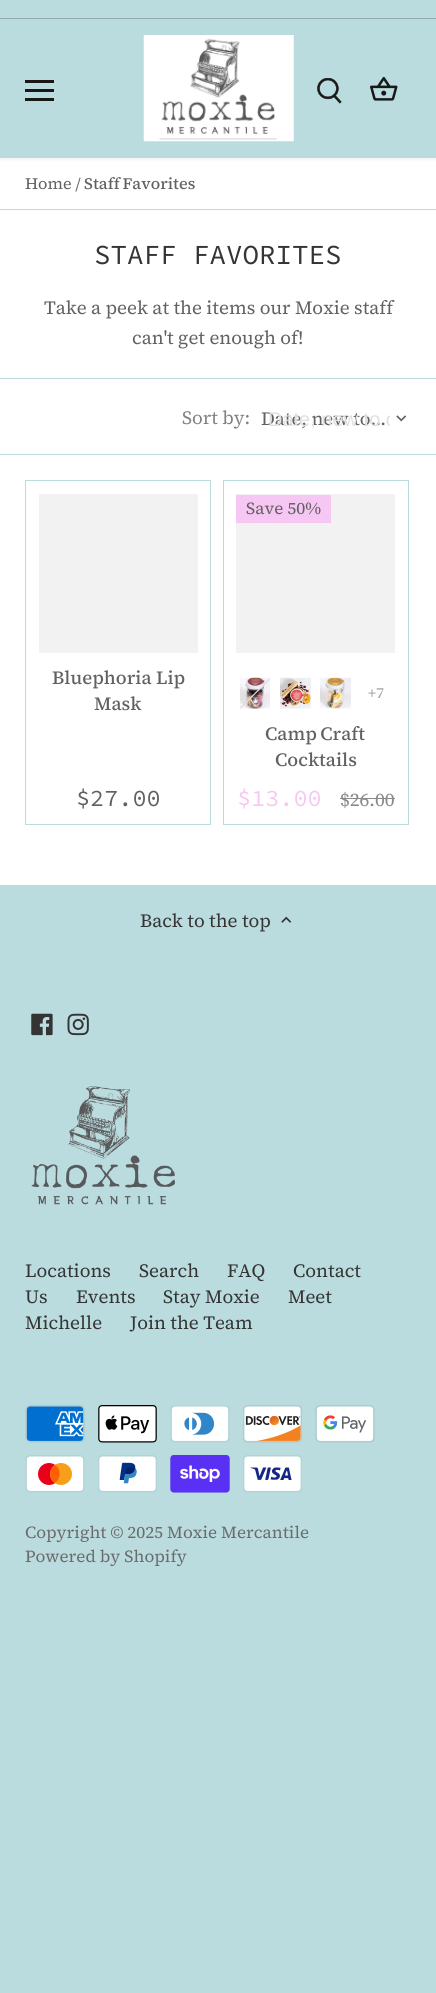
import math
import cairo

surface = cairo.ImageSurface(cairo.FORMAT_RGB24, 436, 1993)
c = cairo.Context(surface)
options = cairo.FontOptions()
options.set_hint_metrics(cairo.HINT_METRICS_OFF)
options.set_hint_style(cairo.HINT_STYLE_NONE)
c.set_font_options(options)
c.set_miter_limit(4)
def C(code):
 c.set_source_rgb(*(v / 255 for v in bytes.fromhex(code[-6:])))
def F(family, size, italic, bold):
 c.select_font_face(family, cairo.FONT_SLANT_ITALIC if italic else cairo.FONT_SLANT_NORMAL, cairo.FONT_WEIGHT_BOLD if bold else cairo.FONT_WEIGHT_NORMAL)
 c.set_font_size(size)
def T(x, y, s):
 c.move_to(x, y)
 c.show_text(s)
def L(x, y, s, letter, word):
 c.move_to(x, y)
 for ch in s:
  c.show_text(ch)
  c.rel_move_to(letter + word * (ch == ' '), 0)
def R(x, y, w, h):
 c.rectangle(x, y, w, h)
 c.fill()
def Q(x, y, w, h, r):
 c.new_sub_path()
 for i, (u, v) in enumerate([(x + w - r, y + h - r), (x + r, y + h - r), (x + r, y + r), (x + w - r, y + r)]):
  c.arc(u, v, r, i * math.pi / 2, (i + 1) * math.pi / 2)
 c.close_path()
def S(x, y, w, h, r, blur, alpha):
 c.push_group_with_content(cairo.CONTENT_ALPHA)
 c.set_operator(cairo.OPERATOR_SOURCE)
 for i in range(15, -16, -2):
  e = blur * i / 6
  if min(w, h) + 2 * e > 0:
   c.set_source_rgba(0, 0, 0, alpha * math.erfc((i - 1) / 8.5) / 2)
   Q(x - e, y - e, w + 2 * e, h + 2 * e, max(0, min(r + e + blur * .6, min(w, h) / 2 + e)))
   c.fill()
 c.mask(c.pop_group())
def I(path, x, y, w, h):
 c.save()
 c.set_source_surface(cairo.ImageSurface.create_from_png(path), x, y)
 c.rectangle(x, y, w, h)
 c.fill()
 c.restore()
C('badcdf')
c.paint()
C('ffffff')
R(0,158,436,727)
C('000000')
S(-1,18,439,141,0,2,.08)
C('badcdf')
R(0,19,436,139)
C('191817')
R(25,80,29,3)
R(25,89,29,3)
R(25,98,29,3)
I('1.png',143,35,151,107)
I('2.png',317,78,25,26)
I('3.png',370,76,28,25)
C('badcdf')
R(0,16,436,2)
C('92abad')
R(0,18,436,1)
C('badcdf')
R(0,209,436,1)
F('Source Serif 4',16,0,0)
C('616161')
T(25,189,'Home /')
F('Source Serif 4 Medium',16,0,0)
L(84,189,'Staff Favorites',0,-1)
F('Source Code Pro',27.5,0,0)
C('343434')
T(94,264,'STAFF FAVORITES')
F('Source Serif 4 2',18.75,0,0)
C('616161')
T(44,314,'Take a peek at the items our Moxie staff')
T(132,344,'can\'t get enough of!')
C('badcdf')
R(0,378,436,1)
R(0,454,436,1)
C('818181')
T(182,424,'Sort by:')
C('616161')
T(261,425,'Date, new to…')
c.save()
c.rectangle(268,408,122,23)
c.clip()
F('Liberation Sans',20,0,0)
C('e0e0e0')
T(268,426,'Date, new to o')
c.restore()
I('4.png',396,415,11,7)
c.rectangle(25.5,480.5,185,344)
C('badcdf')
c.set_line_width(1)
c.stroke()
C('f2f2f2')
R(39,494,159,159)
F('Source Serif 4 2 Medium',18.75,0,0)
C('616161')
T(52,684,'Bluephoria Lip')
T(94,710,'Mask')
F('Source Code Pro',23.5,0,0)
T(76,806,'$27.00')
c.rectangle(223.5,480.5,185,344)
C('badcdf')
c.stroke()
C('f2f2f2')
R(236,494,159,159)
C('f7c7f4')
R(236,495,95,28)
F('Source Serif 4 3',16.9,0,0)
C('616161')
T(246,514,'Save 50%')
I('5.png',240,677,30,32)
c.save()
c.rectangle(240,678,30,31)
c.clip()
c.new_path()
c.move_to(271,677.5)
c.line_to(240,708.5)
C('dedede')
c.set_line_width(1.2)
c.stroke()
c.restore()
I('6.png',280,677,31,32)
I('7.png',320,677,31,32)
F('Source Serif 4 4',15,0,0)
C('a0a0a0')
T(368,698,'+7')
F('Source Serif 4 2 Medium',18.75,0,0)
C('616161')
L(265,740,'Camp Craft',0,-1)
T(275,766,'Cocktails')
F('Source Code Pro',23.5,0,0)
C('f7c7f4')
T(237,806,'$13.00')
F('Source Serif 4 2',18.75,0,0)
C('898989')
T(340,806,'$26.00')
R(340,798,55,1)
C('343434')
T(140,927,'Back to the top')
I('8.png',281,916,11,7)
I('9.png',31,1013,22,23)
I('10.png',67,1013,22,23)
I('11.png',31,1086,144,119)
T(25,1277,'Locations')
T(139,1277,'Search')
T(227,1277,'FAQ')
T(293,1277,'Contact')
T(25,1303,'Us')
T(76,1303,'Events')
T(163,1303,'Stay Moxie')
T(288,1303,'Meet')
T(25,1329,'Michelle')
T(130,1329,'Join the Team')
I('12.png',25,1405,60,38)
I('13.png',98,1405,59,38)
I('14.png',170,1405,60,38)
I('15.png',243,1405,59,38)
I('16.png',315,1405,60,38)
I('17.png',25,1455,60,38)
I('18.png',98,1455,59,38)
I('19.png',170,1455,60,38)
I('20.png',243,1455,59,38)
F('Source Serif 4 3',16.9,0,0)
C('6b6b6b')
T(25,1538,'Copyright © 2025 Moxie Mercantile')
T(25,1562,'Powered by Shopify')
surface.write_to_png('o.png')
